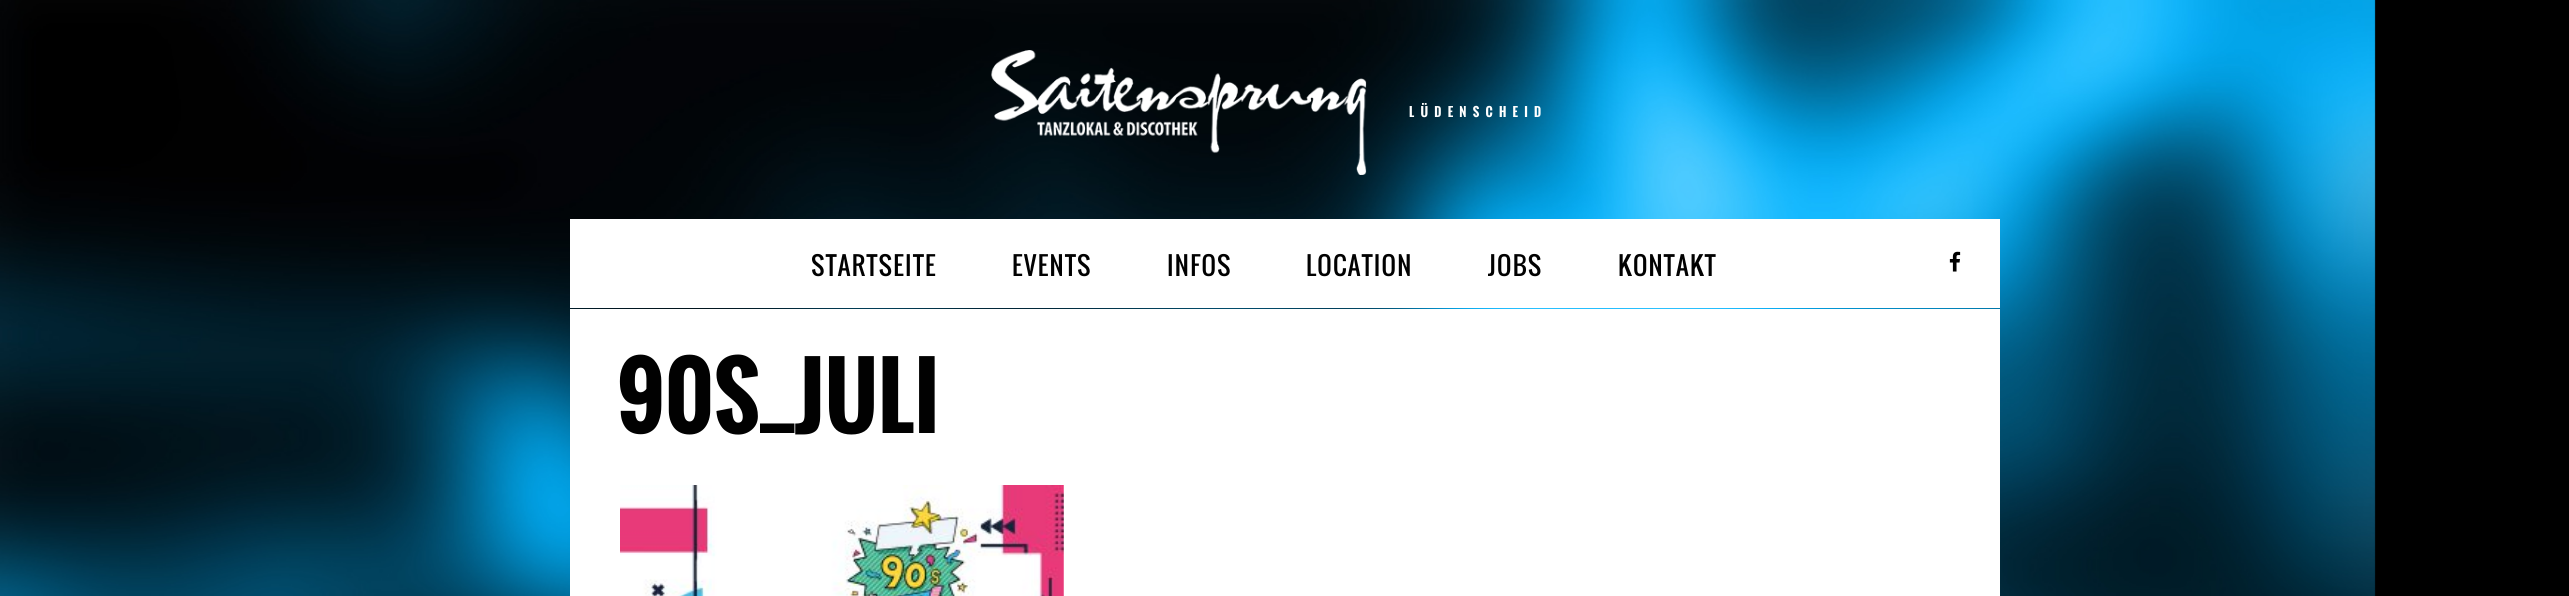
import math
import cairo

surface = cairo.ImageSurface(cairo.FORMAT_RGB24, 2569, 596)
c = cairo.Context(surface)
options = cairo.FontOptions()
options.set_hint_metrics(cairo.HINT_METRICS_OFF)
options.set_hint_style(cairo.HINT_STYLE_NONE)
c.set_font_options(options)
c.set_miter_limit(4)
def C(code):
 c.set_source_rgb(*(v / 255 for v in bytes.fromhex(code[-6:])))
def F(family, size, italic, bold):
 c.select_font_face(family, cairo.FONT_SLANT_ITALIC if italic else cairo.FONT_SLANT_NORMAL, cairo.FONT_WEIGHT_BOLD if bold else cairo.FONT_WEIGHT_NORMAL)
 c.set_font_size(size)
def T(x, y, s):
 c.move_to(x, y)
 c.show_text(s)
def L(x, y, s, letter, word):
 c.move_to(x, y)
 for ch in s:
  c.show_text(ch)
  c.rel_move_to(letter + word * (ch == ' '), 0)
def R(x, y, w, h):
 c.rectangle(x, y, w, h)
 c.fill()
def I(path, x, y, w, h):
 c.save()
 c.set_source_surface(cairo.ImageSurface.create_from_png(path), x, y)
 c.rectangle(x, y, w, h)
 c.fill()
 c.restore()
C('000000')
c.paint()
I('1.png',0,0,2376,596)
I('2.png',991,50,376,125)
F('Oswald',12.5,0,1)
C('ffffff')
L(1409,117,'LÜDENSCHEID',6.25,0)
R(570,219,1430,89)
F('Oswald',25,0,0)
C('010101')
L(811,276,'STARTSEITE',1.25,0)
L(1012,276,'EVENTS',1.25,0)
L(1167,276,'INFOS',1.25,0)
L(1306,276,'LOCATION',1.25,0)
L(1488,276,'JOBS',1.25,0)
L(1618,276,'KONTAKT',1.25,0)
I('3.png',1949,251,12,21)
C('ffffff')
R(570,309,1430,287)
F('Oswald',87.5,0,1)
C('010101')
T(616,433,'90S_JULI')
I('4.png',620,485,444,111)
surface.write_to_png('o.png')
